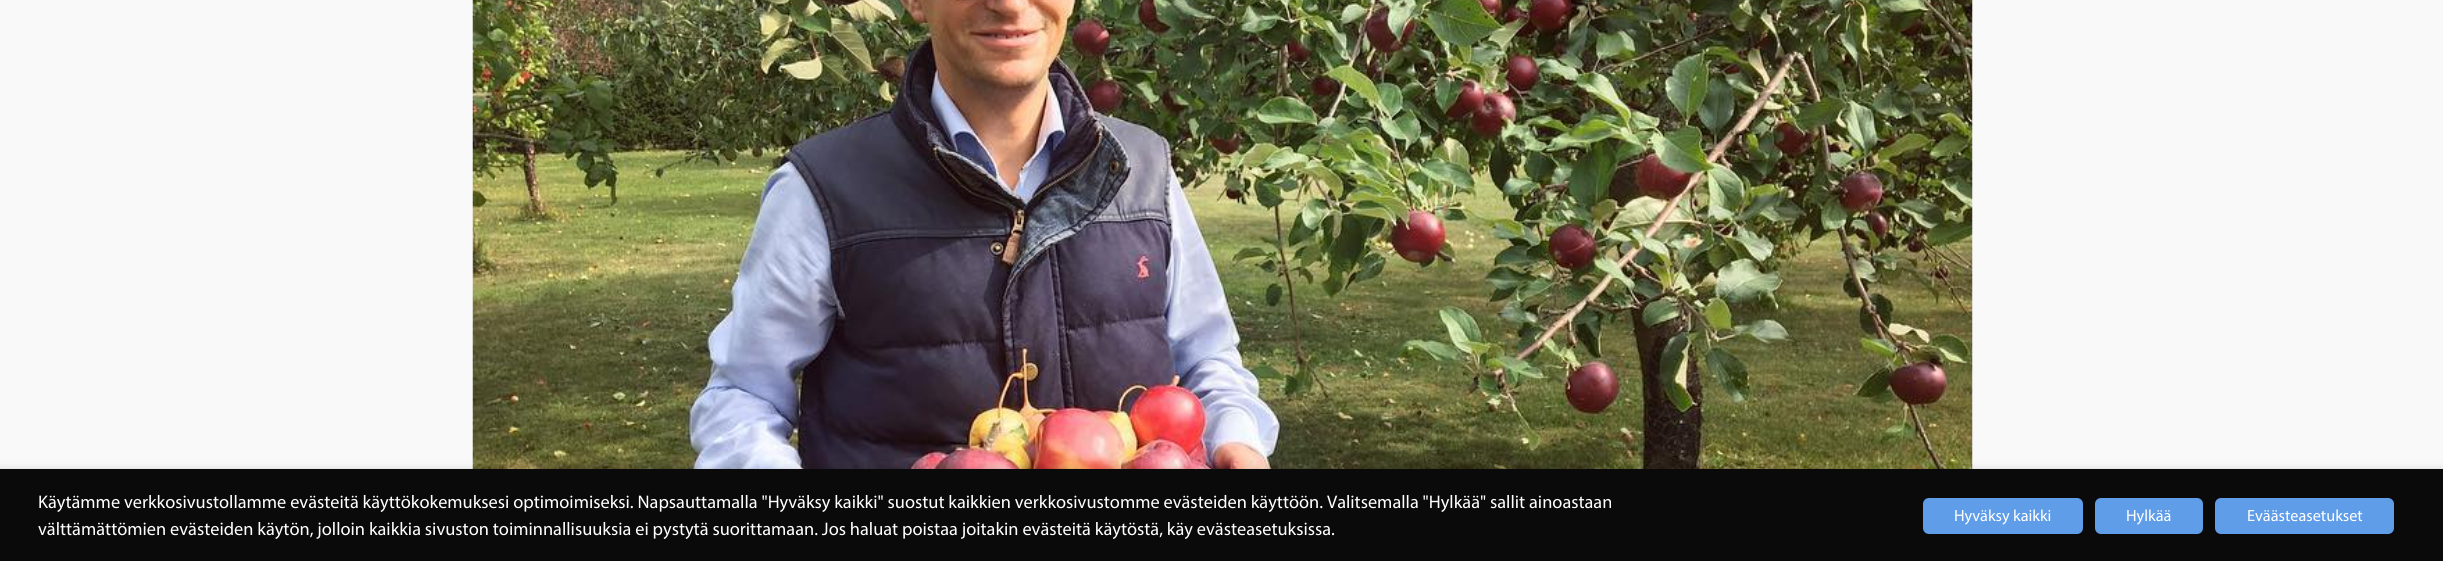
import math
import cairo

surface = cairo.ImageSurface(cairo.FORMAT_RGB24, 2443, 561)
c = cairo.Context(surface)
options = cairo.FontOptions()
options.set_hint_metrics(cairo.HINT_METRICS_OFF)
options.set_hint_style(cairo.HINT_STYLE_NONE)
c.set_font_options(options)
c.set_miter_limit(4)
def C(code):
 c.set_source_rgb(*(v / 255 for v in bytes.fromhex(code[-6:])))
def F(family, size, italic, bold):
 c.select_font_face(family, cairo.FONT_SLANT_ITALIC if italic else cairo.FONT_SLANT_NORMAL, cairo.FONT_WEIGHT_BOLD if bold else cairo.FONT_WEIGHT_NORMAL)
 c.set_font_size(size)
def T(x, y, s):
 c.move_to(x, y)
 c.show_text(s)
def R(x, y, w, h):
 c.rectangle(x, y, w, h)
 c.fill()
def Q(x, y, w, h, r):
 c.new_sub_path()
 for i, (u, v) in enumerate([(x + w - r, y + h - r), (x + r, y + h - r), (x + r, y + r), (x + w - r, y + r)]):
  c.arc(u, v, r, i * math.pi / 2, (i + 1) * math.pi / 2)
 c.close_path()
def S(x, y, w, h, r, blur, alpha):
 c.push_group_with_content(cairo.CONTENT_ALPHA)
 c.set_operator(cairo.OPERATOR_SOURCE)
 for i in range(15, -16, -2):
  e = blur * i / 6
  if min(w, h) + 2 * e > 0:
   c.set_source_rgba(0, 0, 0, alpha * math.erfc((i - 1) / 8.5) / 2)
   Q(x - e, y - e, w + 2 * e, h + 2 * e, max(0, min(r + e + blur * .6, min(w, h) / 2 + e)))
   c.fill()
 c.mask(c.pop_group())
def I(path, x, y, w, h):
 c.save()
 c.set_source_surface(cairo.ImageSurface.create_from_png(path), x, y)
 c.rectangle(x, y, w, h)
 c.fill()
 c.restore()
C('f9f9f9')
c.paint()
I('1.png',472,0,1501,469)
C('000000')
S(0,475,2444,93,0,6,.5)
C('0a0a0a')
R(0,469,2443,92)
F('Myriad',18.33,0,0)
C('ffffff')
T(38,508,'Käytämme verkkosivustollamme evästeitä käyttökokemuksesi optimoimiseksi. Napsauttamalla "Hyväksy kaikki" suostut kaikkien verkkosivustomme evästeiden käyttöön. Valitsemalla "Hylkää" sallit ainoastaan')
T(38,535,'välttämättömien evästeiden käytön, jolloin kaikkia sivuston toiminnallisuuksia ei pystytä suorittamaan. Jos haluat poistaa joitakin evästeitä käytöstä, käy evästeasetuksissa.')
C('609de9')
Q(1923,498,160,36,6)
c.fill()
F('Myriad',16.25,0,0)
C('ffffff')
T(1954,521,'Hyväksy kaikki')
C('609de9')
Q(2095,498,108,36,6)
c.fill()
C('ffffff')
T(2126,521,'Hylkää')
C('609de9')
Q(2215,498,179,36,6)
c.fill()
C('ffffff')
T(2247,521,'Eväästeasetukset')
surface.write_to_png('o.png')
